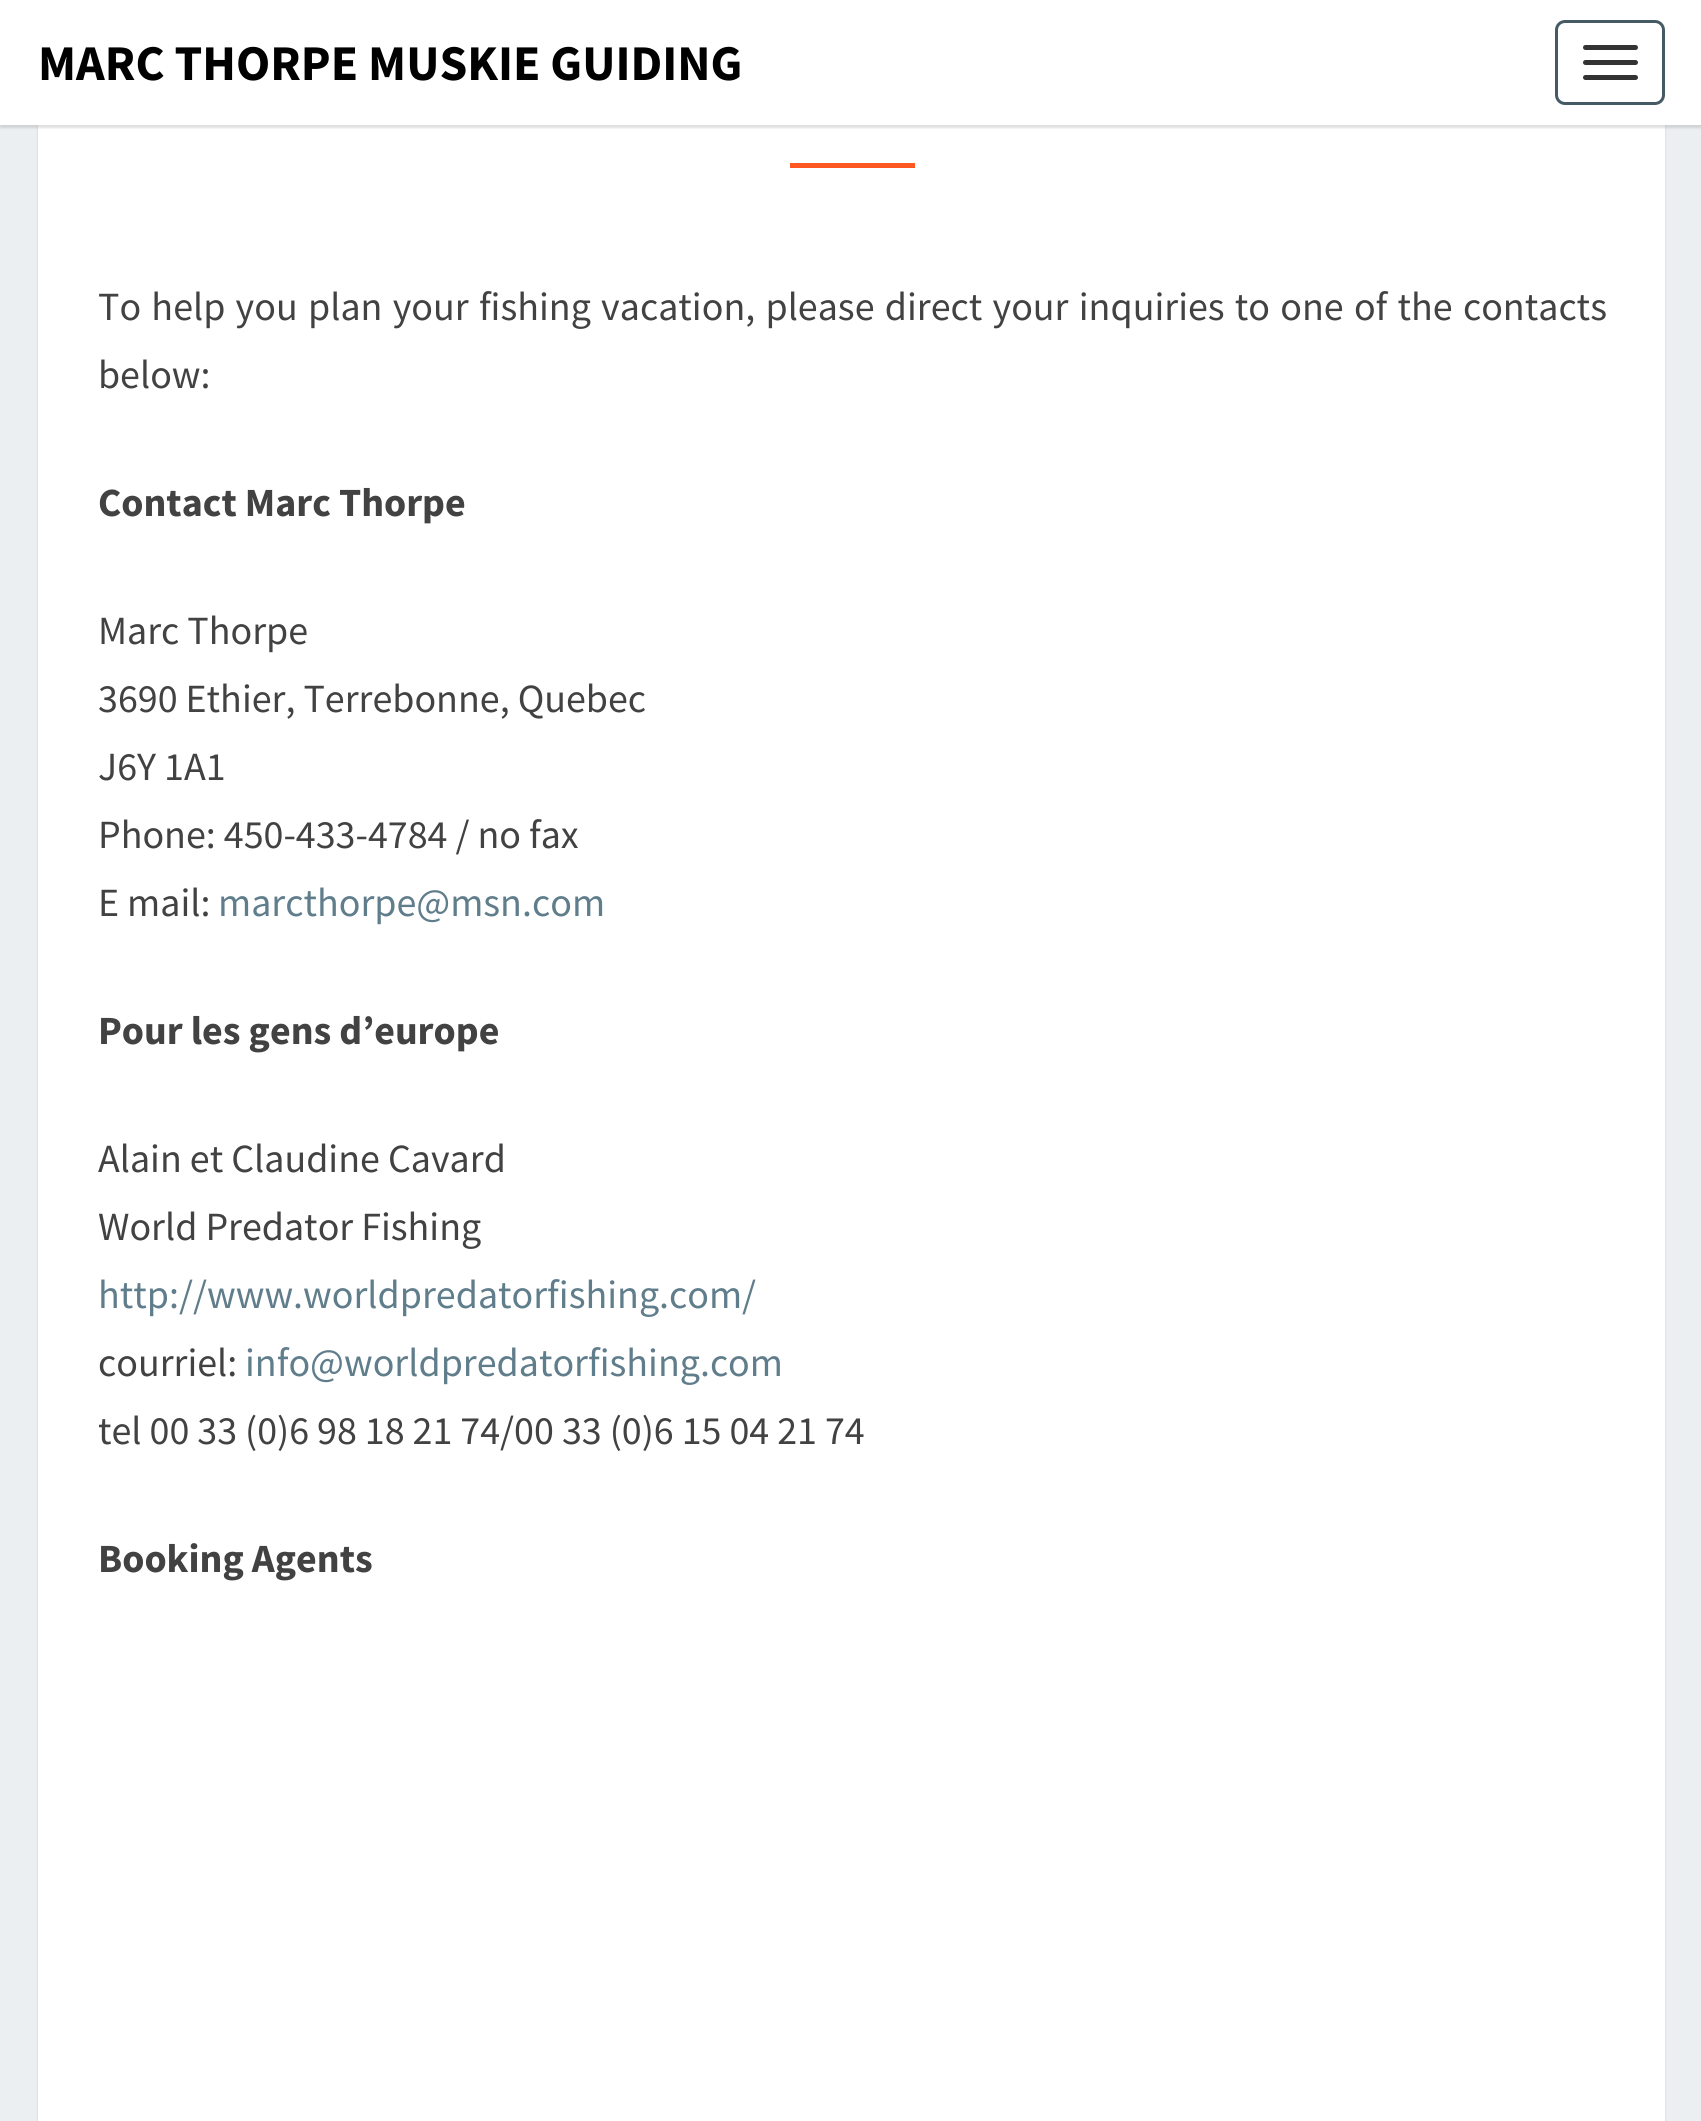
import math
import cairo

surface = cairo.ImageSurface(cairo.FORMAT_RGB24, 1701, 2121)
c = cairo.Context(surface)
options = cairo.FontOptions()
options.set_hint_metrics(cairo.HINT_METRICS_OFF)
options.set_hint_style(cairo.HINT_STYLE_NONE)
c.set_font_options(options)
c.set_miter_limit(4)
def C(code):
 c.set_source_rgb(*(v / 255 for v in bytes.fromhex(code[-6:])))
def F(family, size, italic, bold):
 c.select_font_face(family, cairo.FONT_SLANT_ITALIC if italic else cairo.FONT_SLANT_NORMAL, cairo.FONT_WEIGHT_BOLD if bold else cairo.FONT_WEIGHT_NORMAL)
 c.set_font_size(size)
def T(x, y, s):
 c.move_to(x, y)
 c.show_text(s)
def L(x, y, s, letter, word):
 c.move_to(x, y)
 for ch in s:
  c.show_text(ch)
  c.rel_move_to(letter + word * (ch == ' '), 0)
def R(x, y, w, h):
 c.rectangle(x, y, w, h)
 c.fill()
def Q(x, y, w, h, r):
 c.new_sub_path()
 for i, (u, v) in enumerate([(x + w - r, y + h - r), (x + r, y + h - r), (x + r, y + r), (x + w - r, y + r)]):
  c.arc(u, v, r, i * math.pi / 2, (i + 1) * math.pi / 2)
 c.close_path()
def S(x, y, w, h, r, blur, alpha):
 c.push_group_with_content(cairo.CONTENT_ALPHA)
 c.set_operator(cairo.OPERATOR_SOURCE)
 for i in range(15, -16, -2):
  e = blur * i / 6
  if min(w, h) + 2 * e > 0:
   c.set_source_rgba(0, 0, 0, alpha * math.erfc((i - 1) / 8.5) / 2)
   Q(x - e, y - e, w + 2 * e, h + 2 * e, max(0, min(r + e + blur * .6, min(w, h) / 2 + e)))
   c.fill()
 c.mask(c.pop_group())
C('eceff1')
c.paint()
C('000000')
S(38,-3,1627,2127,0,1,.15)
C('ffffff')
R(38,125,1627,1996)
C('646464')
S(0,3,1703,125,0,1,.2)
C('ffffff')
R(0,0,1701,125)
F('Source Sans Pro',50,0,1)
C('000000')
T(38,80,'MARC THORPE MUSKIE GUIDING')
Q(1556.5,21.5,107,82,8.5)
C('455a64')
c.set_line_width(3)
c.stroke()
C('333333')
Q(1583,45,55,5,2.5)
c.fill()
Q(1583,60,55,5,2.5)
c.fill()
Q(1583,75,55,5,2.5)
c.fill()
C('ff5722')
R(790,163,125,5)
F('Source Sans Pro',40,0,0)
C('424242')
L(98,320,'To help you plan your fishing vacation, please direct your inquiries to one of the contacts',0,2.25)
T(98,388,'below:')
F('Source Sans Pro',40,0,1)
T(98,516,'Contact Marc Thorpe')
F('Source Sans Pro',40,0,0)
T(98,644,'Marc Thorpe')
T(98,712,'3690 Ethier, Terrebonne, Quebec')
T(98,780,'J6Y 1A1')
T(98,848,'Phone: 450-433-4784 / no fax')
T(98,916,'E mail:')
C('607d8b')
T(218,916,'marcthorpe@msn.com')
F('Source Sans Pro',40,0,1)
C('424242')
T(98,1044,'Pour les gens d’europe')
F('Source Sans Pro',40,0,0)
T(98,1172,'Alain et Claudine Cavard')
T(98,1240,'World Predator Fishing')
C('607d8b')
T(98,1308,'http://www.worldpredatorfishing.com/')
C('424242')
T(98,1376,'courriel:')
C('607d8b')
T(245,1376,'info@worldpredatorfishing.com')
C('424242')
T(98,1444,'tel 00 33 (0)6 98 18 21 74/00 33 (0)6 15 04 21 74')
F('Source Sans Pro',40,0,1)
T(98,1572,'Booking Agents')
surface.write_to_png('o.png')
